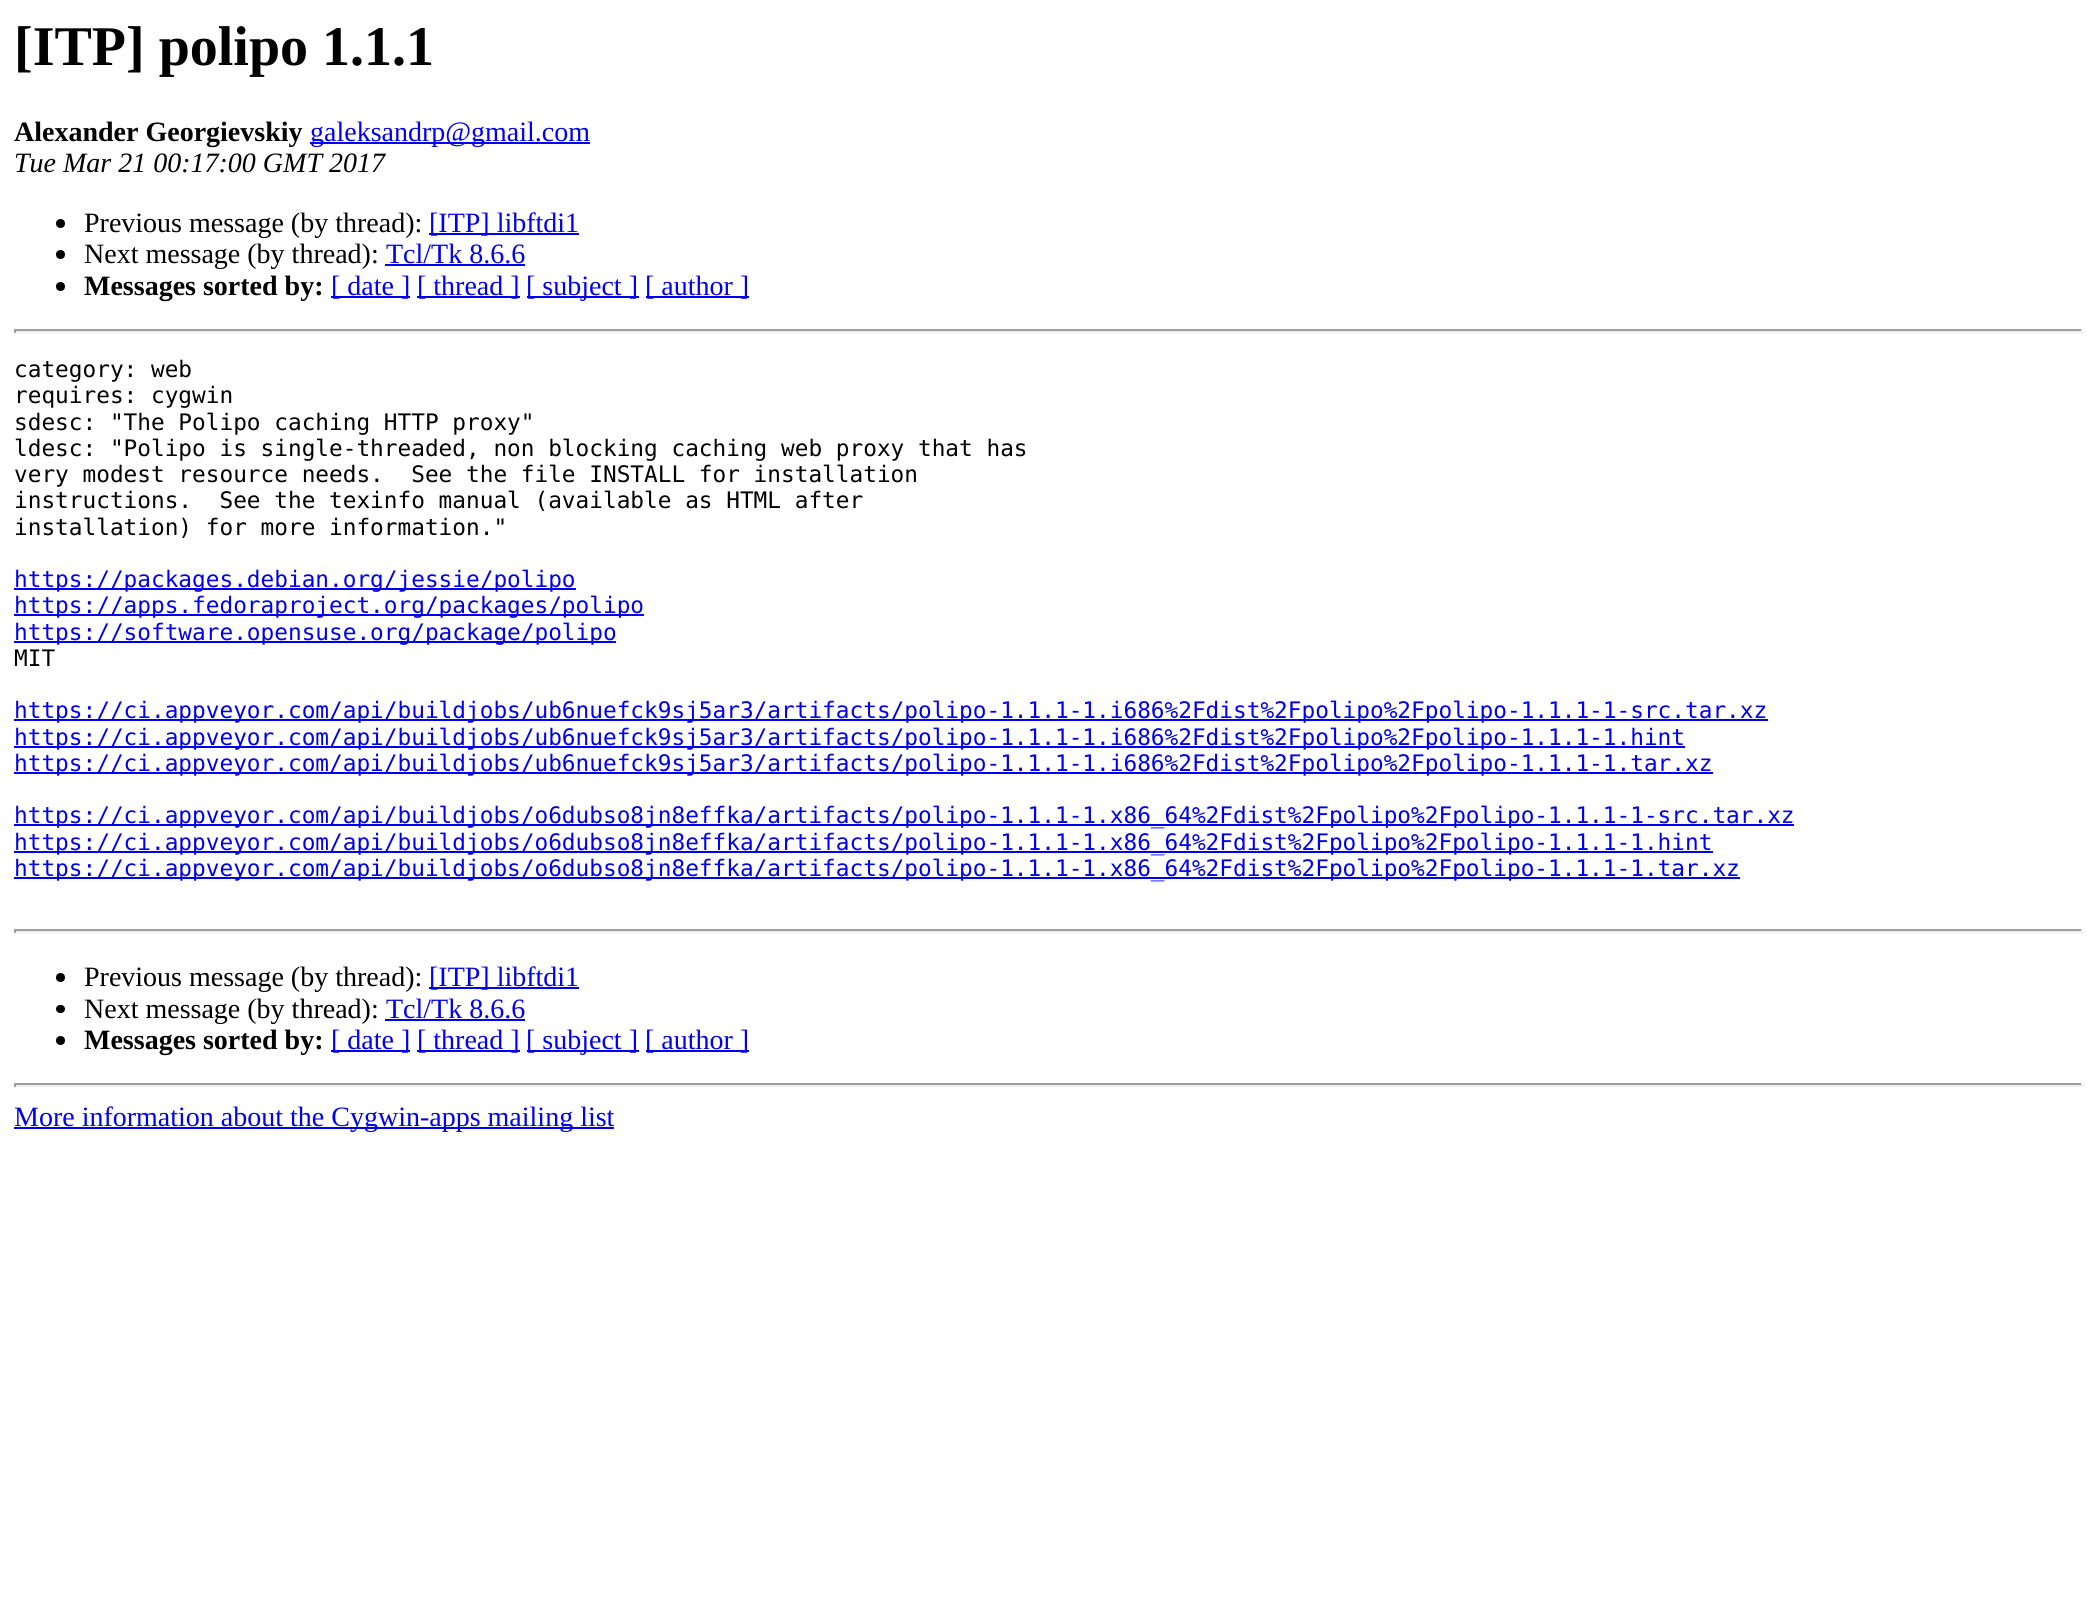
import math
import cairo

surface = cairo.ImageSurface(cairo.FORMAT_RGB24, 2095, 1621)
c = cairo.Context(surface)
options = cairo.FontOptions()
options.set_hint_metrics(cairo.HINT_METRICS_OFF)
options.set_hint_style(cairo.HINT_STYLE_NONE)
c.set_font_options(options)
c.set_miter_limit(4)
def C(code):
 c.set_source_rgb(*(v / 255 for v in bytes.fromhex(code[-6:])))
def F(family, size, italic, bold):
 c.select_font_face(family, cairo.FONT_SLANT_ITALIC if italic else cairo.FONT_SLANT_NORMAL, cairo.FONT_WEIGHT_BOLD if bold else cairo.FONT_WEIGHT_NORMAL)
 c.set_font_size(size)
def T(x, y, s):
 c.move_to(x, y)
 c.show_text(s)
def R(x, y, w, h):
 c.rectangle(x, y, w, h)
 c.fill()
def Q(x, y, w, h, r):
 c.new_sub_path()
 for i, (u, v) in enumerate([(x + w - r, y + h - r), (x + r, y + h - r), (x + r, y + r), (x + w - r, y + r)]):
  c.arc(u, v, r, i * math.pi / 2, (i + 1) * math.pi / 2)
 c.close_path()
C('ffffff')
c.paint()
F('Liberation Serif',56,0,1)
C('000000')
T(14,65,'[ITP] polipo 1.1.1')
F('Liberation Serif',28,0,1)
T(14,141,'Alexander Georgievskiy')
C('0000ee')
R(310,142,280,2)
F('Liberation Serif',28,0,0)
T(310,141,'galeksandrp@gmail.com')
F('Liberation Serif',28,1,0)
C('000000')
T(14,172,'Tue Mar 21 00:17:00 GMT 2017')
c.new_path()
c.arc(60.5,223.5,4.5,0,2 * math.pi)
c.fill()
F('Liberation Serif',28,0,0)
T(84,232,'Previous message (by thread):')
C('0000ee')
R(429,233,150,2)
T(429,232,'[ITP] libftdi1')
C('000000')
c.new_path()
c.arc(60.5,254.5,4.5,0,2 * math.pi)
c.fill()
T(84,263,'Next message (by thread):')
C('0000ee')
T(386,263,'Tcl/Tk 8.6.6')
R(385,264,140,2)
C('000000')
c.new_path()
c.arc(60.5,286.5,4.5,0,2 * math.pi)
c.fill()
F('Liberation Serif',28,0,1)
T(84,295,'Messages sorted by:')
C('0000ee')
R(331,296,79,2)
F('Liberation Serif',28,0,0)
T(331,295,'[ date ]')
R(417,296,103,2)
T(417,295,'[ thread ]')
R(527,296,112,2)
T(526,295,'[ subject ]')
R(646,296,103,2)
T(645,295,'[ author ]')
C('9f9f9f')
R(14,329,2069,2)
C('eeeeee')
R(2081,329,2,4)
R(14,331,2069,2)
C('9f9f9f')
R(14,329,2,4)
F('DejaVu Sans Mono',22.75,0,0)
C('000000')
T(14,377,'category: web')
T(14,403,'requires: cygwin')
T(14,430,'sdesc: "The Polipo caching HTTP proxy"')
T(14,456,'ldesc: "Polipo is single-threaded, non blocking caching web proxy that has')
T(14,482,'very modest resource needs.  See the file INSTALL for installation')
T(14,508,'instructions.  See the texinfo manual (available as HTML after')
T(14,535,'installation) for more information."')
C('0000ee')
R(14,588,562,2)
T(14,587,'https://packages.debian.org/jessie/polipo')
R(14,614,630,2)
T(14,613,'https://apps.fedoraproject.org/packages/polipo')
R(14,641,602,2)
T(14,640,'https://software.opensuse.org/package/polipo')
C('000000')
T(14,666,'MIT')
C('0000ee')
R(14,719,1754,2)
T(14,718,'https://ci.appveyor.com/api/buildjobs/ub6nuefck9sj5ar3/artifacts/polipo-1.1.1-1.i686%2Fdist%2Fpolipo%2Fpolipo-1.1.1-1-src.tar.xz')
R(14,746,1671,2)
T(14,745,'https://ci.appveyor.com/api/buildjobs/ub6nuefck9sj5ar3/artifacts/polipo-1.1.1-1.i686%2Fdist%2Fpolipo%2Fpolipo-1.1.1-1.hint')
R(14,772,1699,2)
T(14,771,'https://ci.appveyor.com/api/buildjobs/ub6nuefck9sj5ar3/artifacts/polipo-1.1.1-1.i686%2Fdist%2Fpolipo%2Fpolipo-1.1.1-1.tar.xz')
R(14,824,1780,2)
T(14,823,'https://ci.appveyor.com/api/buildjobs/o6dubso8jn8effka/artifacts/polipo-1.1.1-1.x86_64%2Fdist%2Fpolipo%2Fpolipo-1.1.1-1-src.tar.xz')
R(14,851,1699,2)
T(14,850,'https://ci.appveyor.com/api/buildjobs/o6dubso8jn8effka/artifacts/polipo-1.1.1-1.x86_64%2Fdist%2Fpolipo%2Fpolipo-1.1.1-1.hint')
R(14,877,1726,2)
T(14,876,'https://ci.appveyor.com/api/buildjobs/o6dubso8jn8effka/artifacts/polipo-1.1.1-1.x86_64%2Fdist%2Fpolipo%2Fpolipo-1.1.1-1.tar.xz')
C('9f9f9f')
R(14,929,2069,2)
C('eeeeee')
R(2081,929,2,4)
R(14,931,2069,2)
C('9f9f9f')
R(14,929,2,4)
C('000000')
c.new_path()
c.arc(60.5,977.5,4.5,0,2 * math.pi)
c.fill()
F('Liberation Serif',28,0,0)
T(84,986,'Previous message (by thread):')
C('0000ee')
R(429,987,150,2)
T(429,986,'[ITP] libftdi1')
C('000000')
Q(56,1005,9,8,4)
c.fill()
T(84,1018,'Next message (by thread):')
C('0000ee')
T(386,1018,'Tcl/Tk 8.6.6')
R(385,1019,140,2)
C('000000')
c.new_path()
c.arc(60.5,1040.5,4.5,0,2 * math.pi)
c.fill()
F('Liberation Serif',28,0,1)
T(84,1049,'Messages sorted by:')
C('0000ee')
R(331,1050,79,2)
F('Liberation Serif',28,0,0)
T(331,1049,'[ date ]')
R(417,1050,103,2)
T(417,1049,'[ thread ]')
R(527,1050,112,2)
T(526,1049,'[ subject ]')
R(646,1050,103,2)
T(645,1049,'[ author ]')
C('9f9f9f')
R(14,1083,2069,2)
C('eeeeee')
R(2081,1083,2,4)
R(14,1085,2069,2)
C('9f9f9f')
R(14,1083,2,4)
C('0000ee')
R(14,1127,600,2)
T(14,1126,'More information about the Cygwin-apps mailing list')
surface.write_to_png('o.png')
